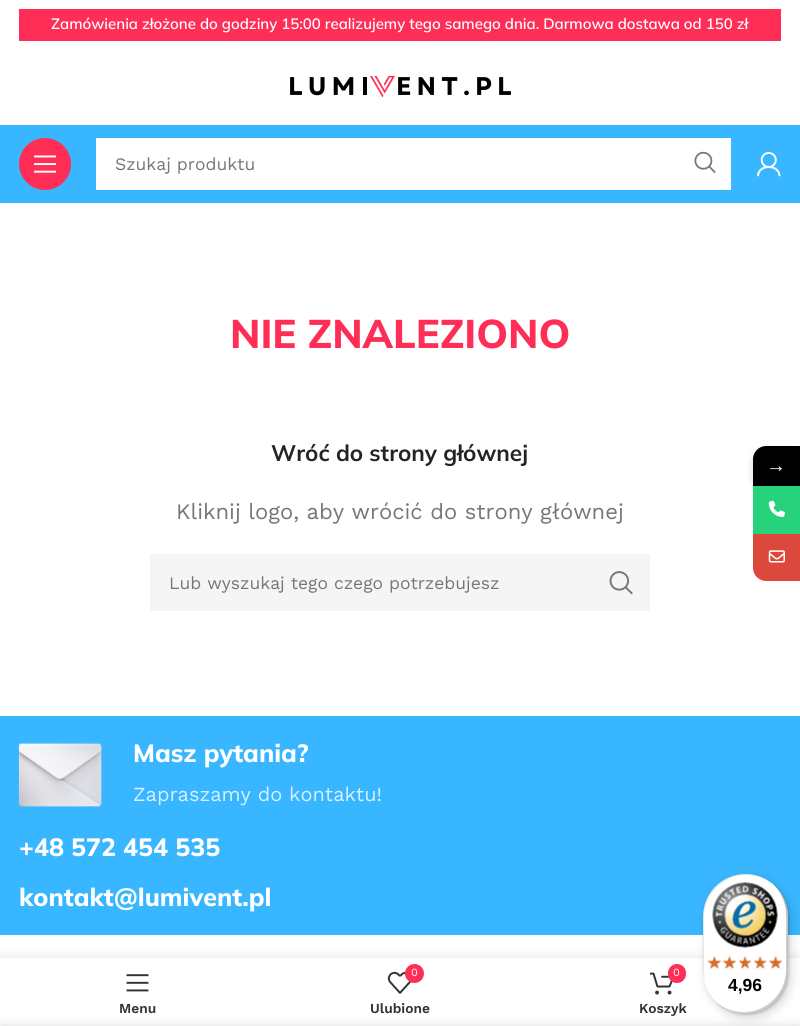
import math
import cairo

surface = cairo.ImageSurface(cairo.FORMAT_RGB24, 800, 1026)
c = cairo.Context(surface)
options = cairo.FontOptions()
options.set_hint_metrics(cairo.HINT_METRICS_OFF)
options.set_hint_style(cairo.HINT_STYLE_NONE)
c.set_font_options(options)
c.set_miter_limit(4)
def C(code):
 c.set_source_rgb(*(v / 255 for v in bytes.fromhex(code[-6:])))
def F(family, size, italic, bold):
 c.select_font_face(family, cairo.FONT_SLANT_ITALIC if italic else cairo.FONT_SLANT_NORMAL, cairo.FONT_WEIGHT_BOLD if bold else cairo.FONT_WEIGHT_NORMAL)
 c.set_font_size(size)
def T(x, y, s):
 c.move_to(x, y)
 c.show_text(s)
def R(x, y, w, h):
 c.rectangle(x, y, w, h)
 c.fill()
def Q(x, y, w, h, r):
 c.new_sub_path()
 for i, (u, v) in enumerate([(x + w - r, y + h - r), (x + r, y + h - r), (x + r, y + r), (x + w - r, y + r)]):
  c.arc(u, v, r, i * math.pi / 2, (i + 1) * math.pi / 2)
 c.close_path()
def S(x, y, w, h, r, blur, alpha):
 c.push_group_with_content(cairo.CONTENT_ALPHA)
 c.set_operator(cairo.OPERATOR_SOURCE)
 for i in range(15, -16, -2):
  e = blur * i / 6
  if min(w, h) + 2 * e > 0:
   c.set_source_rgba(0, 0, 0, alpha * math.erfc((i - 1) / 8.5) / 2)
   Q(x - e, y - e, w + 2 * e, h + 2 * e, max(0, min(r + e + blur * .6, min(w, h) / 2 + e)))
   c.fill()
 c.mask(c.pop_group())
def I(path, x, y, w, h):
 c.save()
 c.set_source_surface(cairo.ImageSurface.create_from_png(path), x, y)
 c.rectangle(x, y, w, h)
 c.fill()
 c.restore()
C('ffffff')
c.paint()
C('ff2e56')
R(19,9,762,32)
F('Mulish SemiBold',15,0,0)
C('ffffff')
T(51,29,'Zamówienia złożone do godziny 15:00 realizujemy tego samego dnia. Darmowa dostawa od 150 zł')
I('1.png',290,75,221,23)
C('38b6ff')
R(0,125,800,78)
C('ff2e56')
c.arc(45,164,26,0,2 * math.pi)
c.fill()
I('2.png',34,155,22,18)
C('ffffff')
R(96,138,635,52)
F('Work Sans',17.5,0,0)
C('767676')
T(115,170,'Szukaj produktu')
I('3.png',694,151,22,22)
I('4.png',757,152,24,25)
F('Mulish ExtraBold',40,0,0)
C('ff2e56')
T(230,348,'NIE ZNALEZIONO')
F('Mulish',22.5,0,1)
C('242424')
T(271,461,'Wróć do strony głównej')
F('Work Sans',22,0,0)
C('767676')
T(176,519,'Kliknij logo, aby wrócić do strony głównej')
C('f5f5f5')
R(150,554,500,57)
F('Work Sans',17.5,0,0)
C('767676')
T(169,589,'Lub wyszukaj tego czego potrzebujesz')
I('5.png',609,571,24,24)
C('38b6ff')
R(0,716,800,219)
I('6.png',18,742,84,65)
F('Mulish ExtraBold',25,0,0)
C('ffffff')
T(133,762,'Masz pytania?')
F('Work Sans',20,0,0)
C('d7f0ff')
T(133,801,'Zapraszamy do kontaktu!')
F('Mulish ExtraBold',25,0,0)
C('ffffff')
T(19,856,'+48 572 454 535')
T(19,906,'kontakt@lumivent.pl')
C('000000')
S(753,450,47,40,13,4,.16)
C('000000')
c.new_path()
c.move_to(766,446)
c.line_to(800,446)
c.line_to(800,486)
c.line_to(753,486)
c.line_to(753,459)
c.curve_to(753,452,759,446,766,446)
c.close_path()
c.fill()
F('Liberation Serif',20,0,0)
C('ffffff')
T(766,472,'→')
C('26d37c')
R(753,486,47,48)
I('7.png',768,500,17,17)
C('dc483c')
c.new_path()
c.move_to(753,534)
c.line_to(800,534)
c.line_to(800,581)
c.line_to(766,581)
c.curve_to(759,581,753,575,753,568)
c.close_path()
c.fill()
I('8.png',768,550,17,13)
C('000000')
S(0,958,800,68,0,5.5,.12)
C('ffffff')
R(0,958,800,68)
I('9.png',126,974,23,18)
F('Work Sans SemiBold',13.75,0,0)
C('333333')
T(119,1013,'Menu')
I('10.png',387,971,24,23)
C('ff2e56')
c.arc(414.5,973.5,9.5,0,2 * math.pi)
c.fill()
F('Work Sans',11,0,0)
C('ffffff')
T(411,976,'0')
F('Work Sans SemiBold',13.75,0,0)
C('333333')
T(370,1013,'Ulubione')
I('11.png',650,972,23,23)
C('ff2e56')
Q(668,964,18,19,9)
c.fill()
F('Work Sans',11,0,0)
C('ffffff')
T(673,976,'0')
F('Work Sans SemiBold',13.75,0,0)
C('333333')
T(639,1013,'Koszyk')
C('000000')
S(706,878,85,140,42.5,5,.15)
S(704,875,85,140,42.5,1,.15)
S(0,1026,800,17,0,5.5,.14)
C('ffffff')
Q(703,874,85,140,42.5)
c.fill()
c.set_source_rgba(0,0,0,0.1)
c.new_path()
c.move_to(746,875)
c.curve_to(759,875,770,880,778,889)
c.curve_to(757,865,719,871,706,900)
c.curve_to(701,912,703,930,703,944)
c.curve_to(703,965,700,986,716,1002)
c.curve_to(708,994,704,984,704,972)
c.line_to(704,918)
c.curve_to(704,894,723,875,746,875)
c.close_path()
c.fill()
c.set_source_rgba(0,0,0,0.2)
c.new_path()
c.move_to(715,1001)
c.curve_to(722,1009,733,1014,746,1014)
c.curve_to(769,1014,788,995,788,972)
c.line_to(788,916)
c.curve_to(788,903,782,891,772,883)
c.curve_to(781,891,786,903,786,915)
c.line_to(786,970)
c.curve_to(786,993,767,1012,744,1012)
c.curve_to(733,1012,722,1008,715,1001)
c.close_path()
c.fill()
c.set_source_rgba(0.196,0.196,0.196,0.2)
c.new_path()
c.move_to(715,1002)
c.curve_to(723,1009,734,1014,746,1014)
c.curve_to(769,1014,788,995,788,972)
c.line_to(788,916)
c.curve_to(788,904,782,892,773,884)
c.curve_to(790,900,787,922,787,943)
c.curve_to(787,957,789,974,784,987)
c.curve_to(772,1014,737,1022,715,1002)
c.close_path()
c.fill()
c.set_source_rgba(1,1,1,0.3)
c.new_path()
c.move_to(717,1003)
c.curve_to(725,1010,735,1014,746,1014)
c.curve_to(769,1014,788,995,788,972)
c.line_to(788,916)
c.curve_to(788,904,782,892,773,884)
c.curve_to(791,900,787,922,787,944)
c.curve_to(787,957,789,975,784,987)
c.curve_to(772,1013,739,1021,717,1003)
c.close_path()
c.fill()
I('12.png',712,882,66,66)
I('18.png',708,956,13,13)
I('13.png',707,956,15,13)
I('19.png',724,956,12,13)
I('14.png',722,956,15,13)
I('20.png',739,956,12,13)
I('15.png',738,956,14,13)
I('21.png',754,956,14,13)
I('16.png',753,956,14,13)
I('22.png',769,956,13,13)
I('17.png',768,956,14,13)
F('Liberation Sans',17.5,0,1)
C('000000')
T(728,991,'4,96')
surface.write_to_png('o.png')
